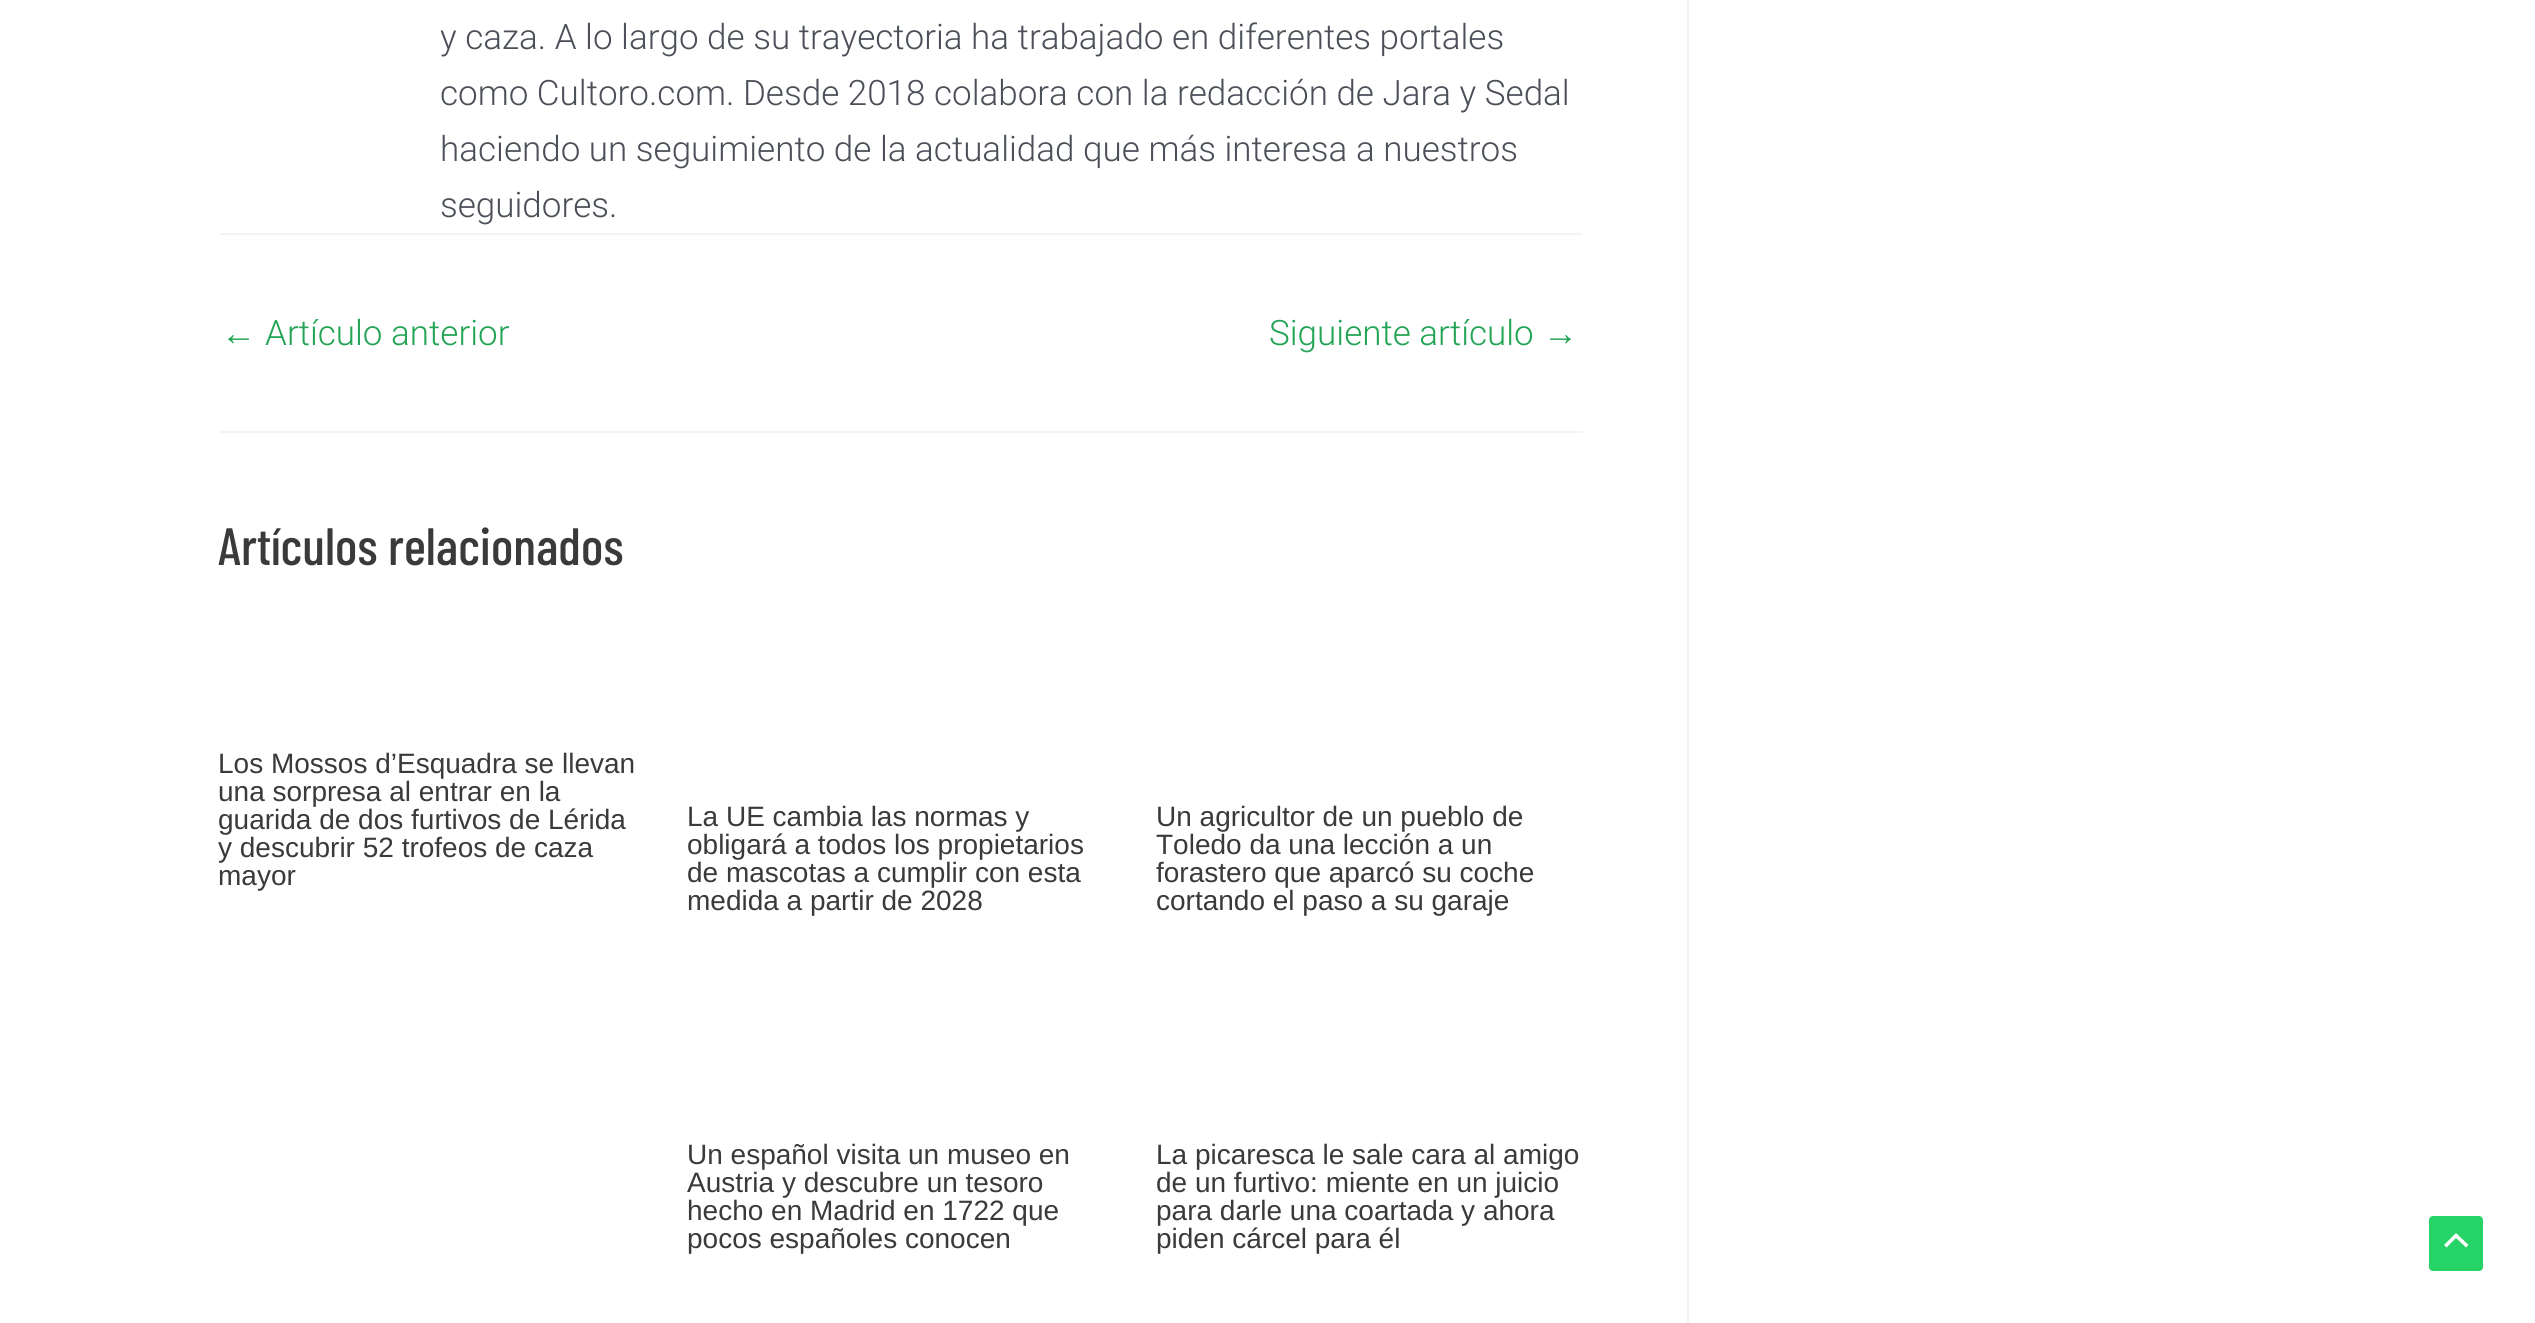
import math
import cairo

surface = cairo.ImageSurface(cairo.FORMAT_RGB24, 2535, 1323)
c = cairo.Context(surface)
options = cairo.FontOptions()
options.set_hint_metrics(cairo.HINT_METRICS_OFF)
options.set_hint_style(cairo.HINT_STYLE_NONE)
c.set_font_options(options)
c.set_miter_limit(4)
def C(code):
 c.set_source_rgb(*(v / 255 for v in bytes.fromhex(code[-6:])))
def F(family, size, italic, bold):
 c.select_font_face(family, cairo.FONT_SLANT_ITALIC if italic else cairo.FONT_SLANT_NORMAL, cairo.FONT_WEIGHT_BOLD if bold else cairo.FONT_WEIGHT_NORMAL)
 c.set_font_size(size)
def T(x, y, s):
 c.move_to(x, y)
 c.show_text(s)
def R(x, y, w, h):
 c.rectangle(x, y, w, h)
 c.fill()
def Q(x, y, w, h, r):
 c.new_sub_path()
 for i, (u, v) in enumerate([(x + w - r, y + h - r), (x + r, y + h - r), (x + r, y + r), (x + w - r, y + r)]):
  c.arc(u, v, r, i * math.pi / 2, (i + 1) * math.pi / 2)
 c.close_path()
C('ffffff')
c.paint()
C('f2f5f7')
R(1687,0,2,1323)
F('Roboto Light',35,0,0)
C('4b4f58')
T(440,49,'y caza. A lo largo de su trayectoria ha trabajado en diferentes portales')
T(440,105,'como Cultoro.com. Desde 2018 colabora con la redacción de Jara y Sedal')
T(440,161,'haciendo un seguimiento de la actualidad que más interesa a nuestros')
T(440,217,'seguidores.')
C('f2f5f7')
R(219,233,1363,2)
F('Liberation Sans',35,0,0)
C('23a455')
T(221,345,'←')
F('Roboto Light',35,0,0)
T(265,345,'Artículo anterior')
T(1269,345,'Siguiente artículo')
F('Liberation Sans',35,0,0)
T(1543,345,'→')
C('f2f5f7')
R(219,431,1363,2)
F('Barlow Condensed Medium',52.5,0,0)
C('3a3a3a')
T(218,565,'Artículos relacionados')
F('Liberation Sans',28,0,0)
T(218,773,'Los Mossos d’Esquadra se llevan')
T(218,801,'una sorpresa al entrar en la')
T(218,829,'guarida de dos furtivos de Lérida')
T(218,857,'y descubrir 52 trofeos de caza')
T(218,885,'mayor')
T(687,826,'La UE cambia las normas y')
T(687,854,'obligará a todos los propietarios')
T(687,882,'de mascotas a cumplir con esta')
T(687,910,'medida a partir de 2028')
T(1156,826,'Un agricultor de un pueblo de')
T(1156,854,'Toledo da una lección a un')
T(1156,882,'forastero que aparcó su coche')
T(1156,910,'cortando el paso a su garaje')
T(687,1164,'Un español visita un museo en')
T(687,1192,'Austria y descubre un tesoro')
T(687,1220,'hecho en Madrid en 1722 que')
T(687,1248,'pocos españoles conocen')
T(1156,1164,'La picaresca le sale cara al amigo')
T(1156,1192,'de un furtivo: miente en un juicio')
T(1156,1220,'para darle una coartada y ahora')
T(1156,1248,'piden cárcel para él')
C('25d366')
Q(2429,1216,54,55,4)
c.fill()
C('ffffff')
c.new_path()
c.move_to(2468.5,1245)
c.line_to(2456,1233)
c.line_to(2444,1245)
c.line_to(2446.5,1247.5)
c.line_to(2456,1238)
c.line_to(2466,1247.5)
c.close_path()
c.fill()
surface.write_to_png('o.png')
